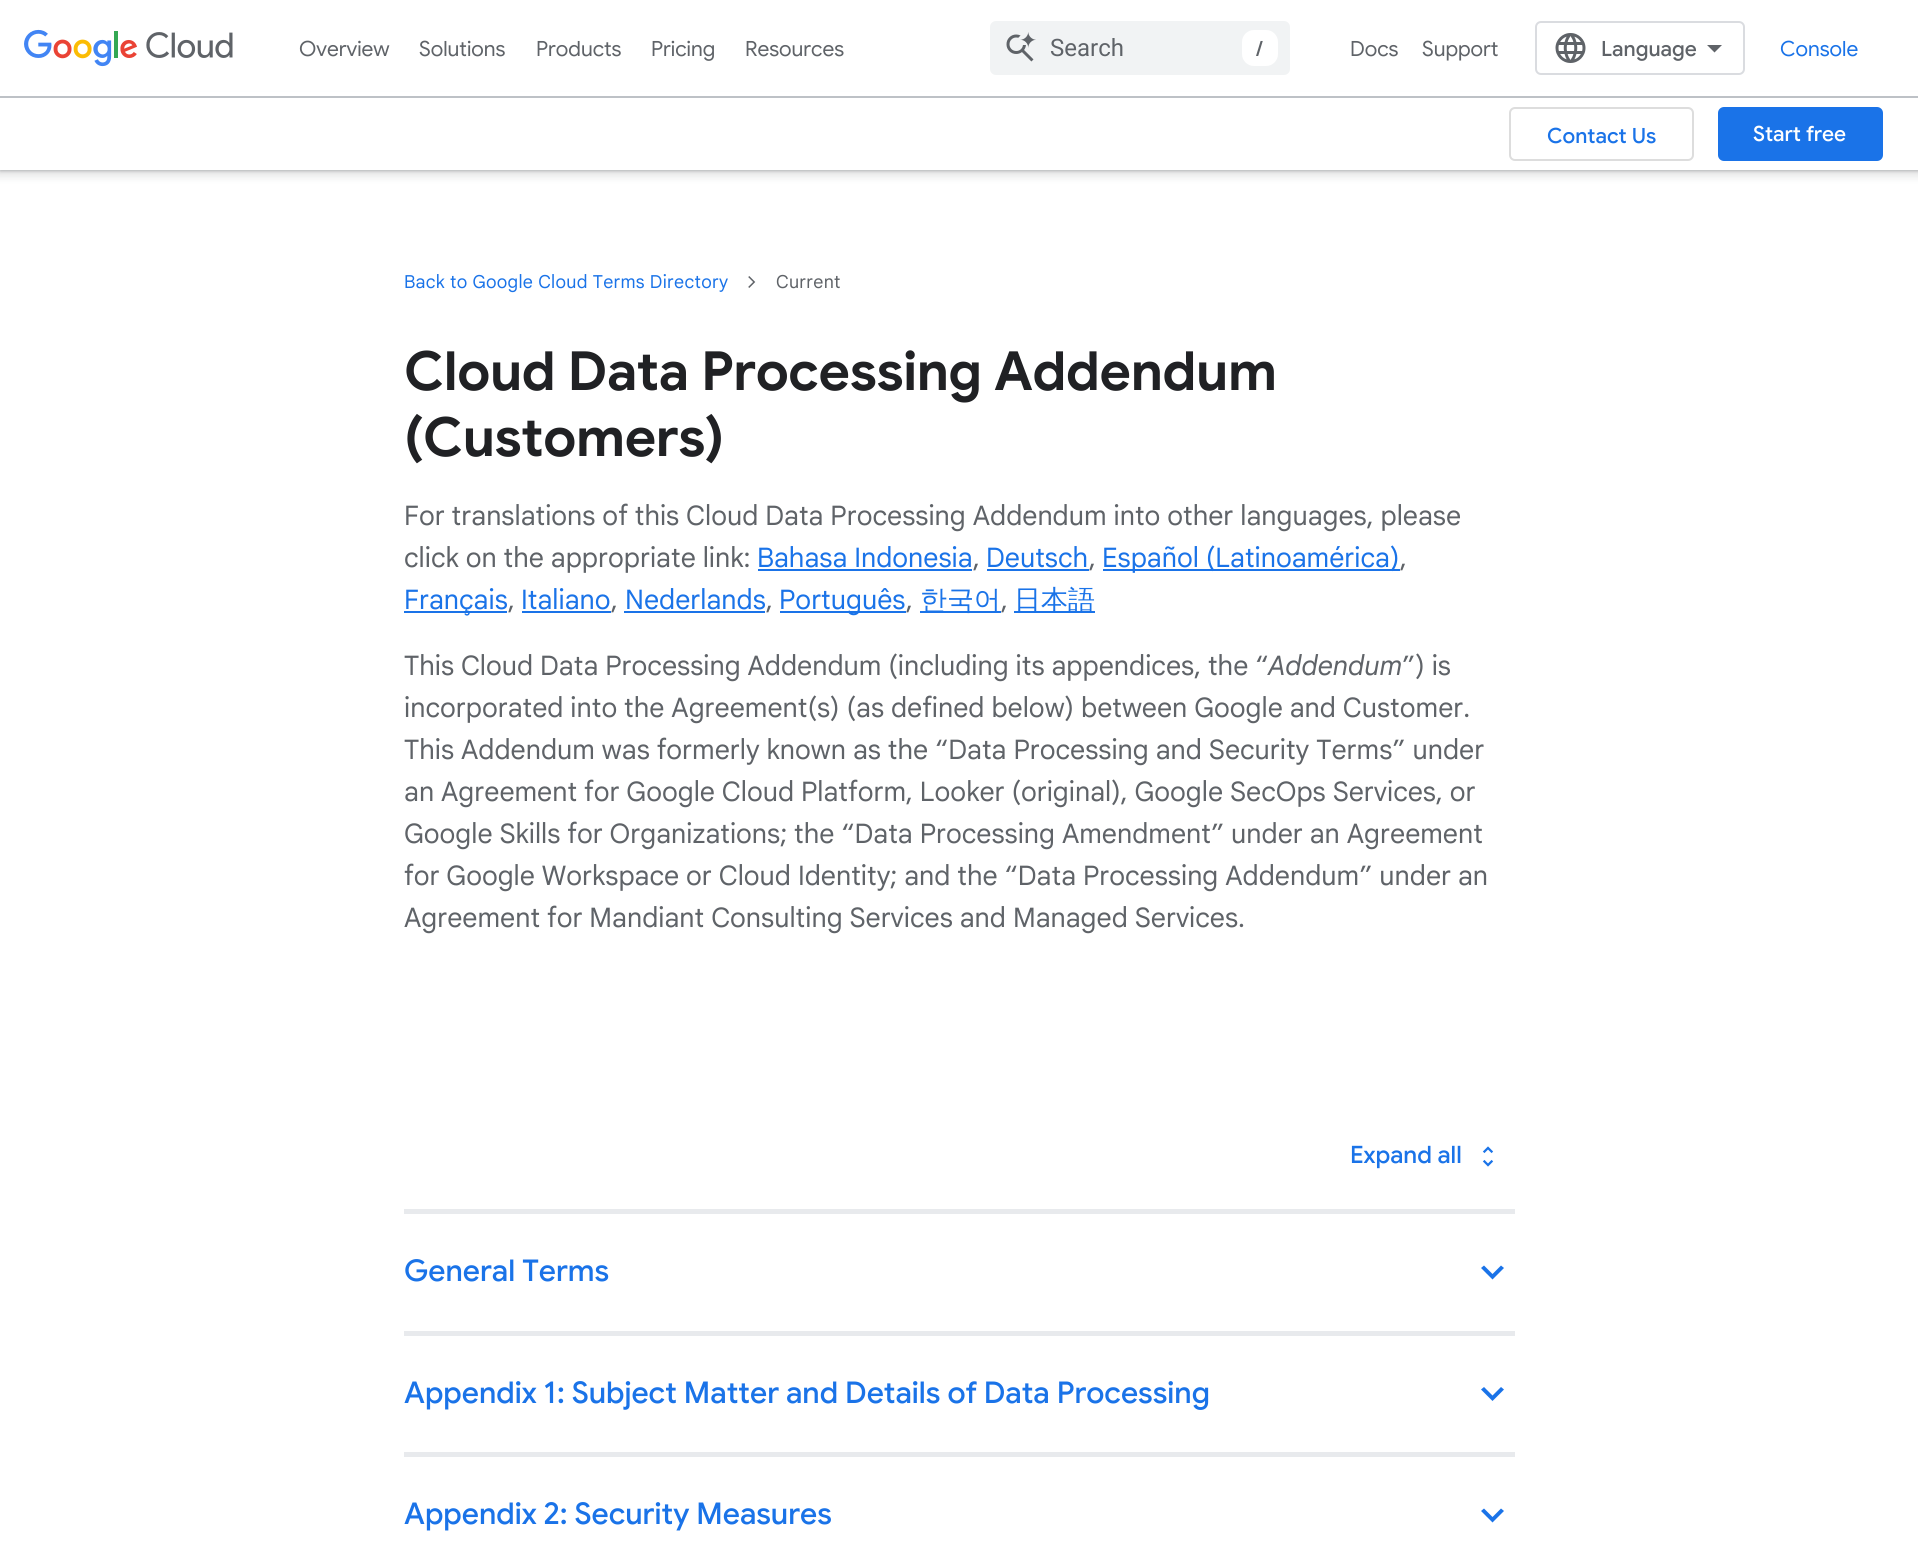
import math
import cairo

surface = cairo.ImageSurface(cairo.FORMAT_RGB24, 1918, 1555)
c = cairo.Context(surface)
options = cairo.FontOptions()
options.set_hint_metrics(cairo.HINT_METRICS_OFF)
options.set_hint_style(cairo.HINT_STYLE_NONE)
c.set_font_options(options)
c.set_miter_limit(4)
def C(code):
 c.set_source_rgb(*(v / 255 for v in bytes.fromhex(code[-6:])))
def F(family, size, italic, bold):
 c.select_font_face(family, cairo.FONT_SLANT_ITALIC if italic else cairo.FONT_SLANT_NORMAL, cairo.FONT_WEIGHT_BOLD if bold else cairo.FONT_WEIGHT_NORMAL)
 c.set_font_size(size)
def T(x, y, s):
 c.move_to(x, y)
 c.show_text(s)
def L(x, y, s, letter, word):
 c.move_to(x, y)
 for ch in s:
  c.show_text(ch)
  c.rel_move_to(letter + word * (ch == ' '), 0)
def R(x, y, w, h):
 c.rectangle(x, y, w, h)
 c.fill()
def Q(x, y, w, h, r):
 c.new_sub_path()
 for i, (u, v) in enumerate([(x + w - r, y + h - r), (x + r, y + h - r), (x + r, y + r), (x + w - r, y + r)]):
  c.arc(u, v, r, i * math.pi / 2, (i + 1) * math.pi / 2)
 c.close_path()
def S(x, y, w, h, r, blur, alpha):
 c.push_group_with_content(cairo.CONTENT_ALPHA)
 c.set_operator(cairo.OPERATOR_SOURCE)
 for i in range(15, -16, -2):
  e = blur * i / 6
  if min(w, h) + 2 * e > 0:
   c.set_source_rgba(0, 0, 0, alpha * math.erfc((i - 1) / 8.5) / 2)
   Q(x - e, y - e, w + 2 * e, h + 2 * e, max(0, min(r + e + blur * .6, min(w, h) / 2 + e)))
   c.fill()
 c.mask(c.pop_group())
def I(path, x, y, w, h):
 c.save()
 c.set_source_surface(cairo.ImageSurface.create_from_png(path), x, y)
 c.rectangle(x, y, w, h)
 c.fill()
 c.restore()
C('ffffff')
c.paint()
C('3c4043')
S(-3,98,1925,78,0,4.5,.15)
S(0,99,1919,72,0,1.5,.3)
C('ffffff')
R(0,92,1918,4)
C('bdc1c6')
R(0,96,1918,2)
I('1.png',24,29,209,38)
F('Google Sans',21,0,0)
C('5f6368')
T(299,56,'Overview')
T(419,56,'Solutions')
T(536,56,'Products')
T(651,56,'Pricing')
T(745,56,'Resources')
C('f1f3f4')
Q(990,21,300,54,6)
c.fill()
I('2.png',1006,32,30,30)
F('Roboto',24,0,0)
C('5f6368')
T(1050,56,'Search')
C('ffffff')
Q(1242,30,36,36,12)
c.fill()
F('Google Sans Medium',21,0,0)
C('5f6368')
T(1256,56,'/')
F('Google Sans',21,0,0)
T(1350,56,'Docs')
T(1422,56,'Support')
Q(1536,22,208,52,5)
C('dadce0')
c.stroke()
I('3.png',1555,33,31,30)
F('Google Sans Medium',21,0,0)
C('5f6368')
T(1601,56,'Language')
c.new_path()
c.move_to(1714.5,52.5)
c.line_to(1707,45)
c.line_to(1722,45)
c.close_path()
c.fill()
F('Google Sans',21,0,0)
C('1a73e8')
T(1780,56,'Console')
C('ffffff')
R(0,98,1918,72)
Q(1510,108,183,52,5)
C('dddddd')
c.stroke()
F('Google Sans Medium',21,0,0)
C('1a73e8')
T(1547,143,'Contact Us')
Q(1718,107,165,54,6)
c.fill()
C('ffffff')
T(1753,141,'Start free')
F('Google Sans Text',18,0,0)
C('1a73e8')
L(404,288,'Back to Google Cloud Terms Directory',.3,0)
I('4.png',748,276,8,12)
C('5f6368')
L(776,288,'Current',.3,0)
F('Google Sans',54,0,1)
C('202124')
L(404,390,'Cloud Data Processing Addendum',-.4,0)
L(404,456,'(Customers)',-.4,0)
F('Google Sans Text',27,0,0)
C('5f6368')
T(404,525,'For translations of this Cloud Data Processing Addendum into other languages, please')
T(404,567,'click on the appropriate link:')
C('1a73e8')
T(757,567,'Bahasa Indonesia')
R(758,569,214,2)
C('5f6368')
T(973,567,',')
C('1a73e8')
T(986,567,'Deutsch')
R(987,569,102,2)
C('5f6368')
T(1089,567,',')
C('1a73e8')
R(1103,569,297,2)
T(1102,567,'Español (Latinoamérica)')
C('5f6368')
T(1400,567,',')
C('1a73e8')
R(404,611,103,2)
T(404,609,'Français')
C('5f6368')
T(508,609,',')
C('1a73e8')
T(521,609,'Italiano')
R(522,611,89,2)
C('5f6368')
T(611,609,',')
C('1a73e8')
T(625,609,'Nederlands')
R(624,611,141,2)
C('5f6368')
T(766,609,',')
C('1a73e8')
R(780,611,126,2)
T(779,609,'Português')
C('5f6368')
T(906,609,',')
C('1a73e8')
R(920,611,81,2)
F('WenQuanYi Zen Hei Medium',27,0,0)
T(920,609,'한국어')
F('Google Sans Text',27,0,0)
C('5f6368')
T(1001,609,',')
C('1a73e8')
R(1014,611,81,2)
F('WenQuanYi Zen Hei Medium',27,0,0)
T(1014,609,'日本語')
F('Google Sans Text',27,0,0)
C('5f6368')
T(404,675,'This Cloud Data Processing Addendum (including its appendices, the “')
F('Google Sans Text',27,1,0)
T(1268,675,'Addendum')
F('Google Sans Text',27,0,0)
T(1402,675,'”) is')
T(404,717,'incorporated into the Agreement(s) (as defined below) between Google and Customer.')
T(404,759,'This Addendum was formerly known as the “Data Processing and Security Terms” under')
T(404,801,'an Agreement for Google Cloud Platform, Looker (original), Google SecOps Services, or')
T(404,843,'Google Skills for Organizations; the “Data Processing Amendment” under an Agreement')
T(404,885,'for Google Workspace or Cloud Identity; and the “Data Processing Addendum” under an')
T(404,927,'Agreement for Mandiant Consulting Services and Managed Services.')
C('e8eaed')
R(404,1209,1111,5)
F('Google Sans Medium',24,0,0)
C('1a73e8')
T(1350,1163,'Expand all')
I('5.png',1482,1146,12,21)
C('e8eaed')
R(404,1331,1111,5)
F('Google Sans Medium',30,0,0)
C('1a73e8')
T(404,1281,'General Terms')
c.new_path()
c.move_to(1484,1265.5)
c.line_to(1492.5,1274)
c.line_to(1501,1265.5)
c.line_to(1504,1268)
c.line_to(1492.5,1279.5)
c.line_to(1481,1268)
c.close_path()
c.fill()
C('e8eaed')
R(404,1452,1111,5)
C('1a73e8')
T(404,1403,'Appendix 1: Subject Matter and Details of Data Processing')
c.new_path()
c.move_to(1484,1387)
c.line_to(1492.5,1395.5)
c.line_to(1501,1387)
c.line_to(1504,1389.5)
c.line_to(1492.5,1401)
c.line_to(1481,1389.5)
c.close_path()
c.fill()
T(404,1524,'Appendix 2: Security Measures')
c.new_path()
c.move_to(1484,1508.5)
c.line_to(1492.5,1517)
c.line_to(1501,1508.5)
c.line_to(1504,1511)
c.line_to(1492.5,1522.5)
c.line_to(1481,1511)
c.close_path()
c.fill()
surface.write_to_png('o.png')
